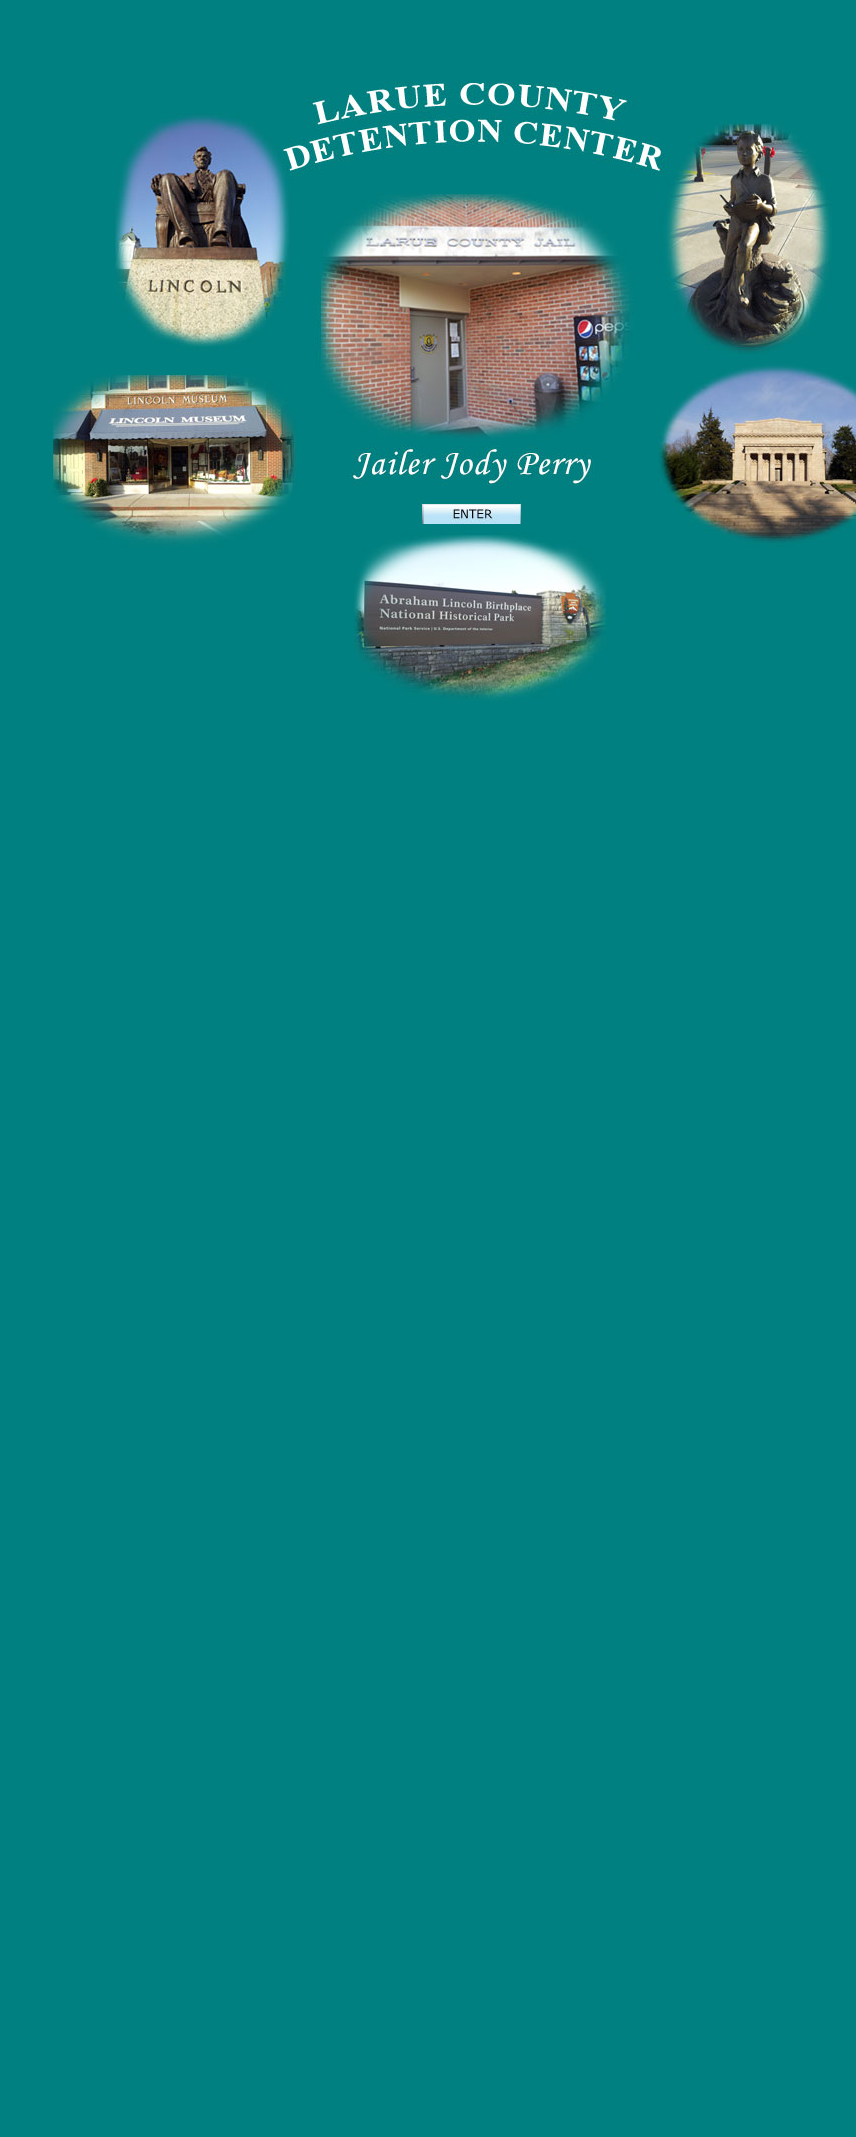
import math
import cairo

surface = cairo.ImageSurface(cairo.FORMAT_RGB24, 856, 2137)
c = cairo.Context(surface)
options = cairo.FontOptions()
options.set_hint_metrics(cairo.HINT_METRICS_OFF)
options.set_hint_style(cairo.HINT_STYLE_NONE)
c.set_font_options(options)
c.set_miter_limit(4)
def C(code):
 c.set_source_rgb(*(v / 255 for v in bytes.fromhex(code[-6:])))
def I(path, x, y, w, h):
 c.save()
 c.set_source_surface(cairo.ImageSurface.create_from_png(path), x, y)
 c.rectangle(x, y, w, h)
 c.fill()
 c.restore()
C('008080')
c.paint()
I('1.png',118,82,709,118)
I('2.png',114,200,718,150)
I('3.png',50,350,806,150)
I('4.png',58,500,798,150)
I('5.png',357,650,242,51)
surface.write_to_png('o.png')
